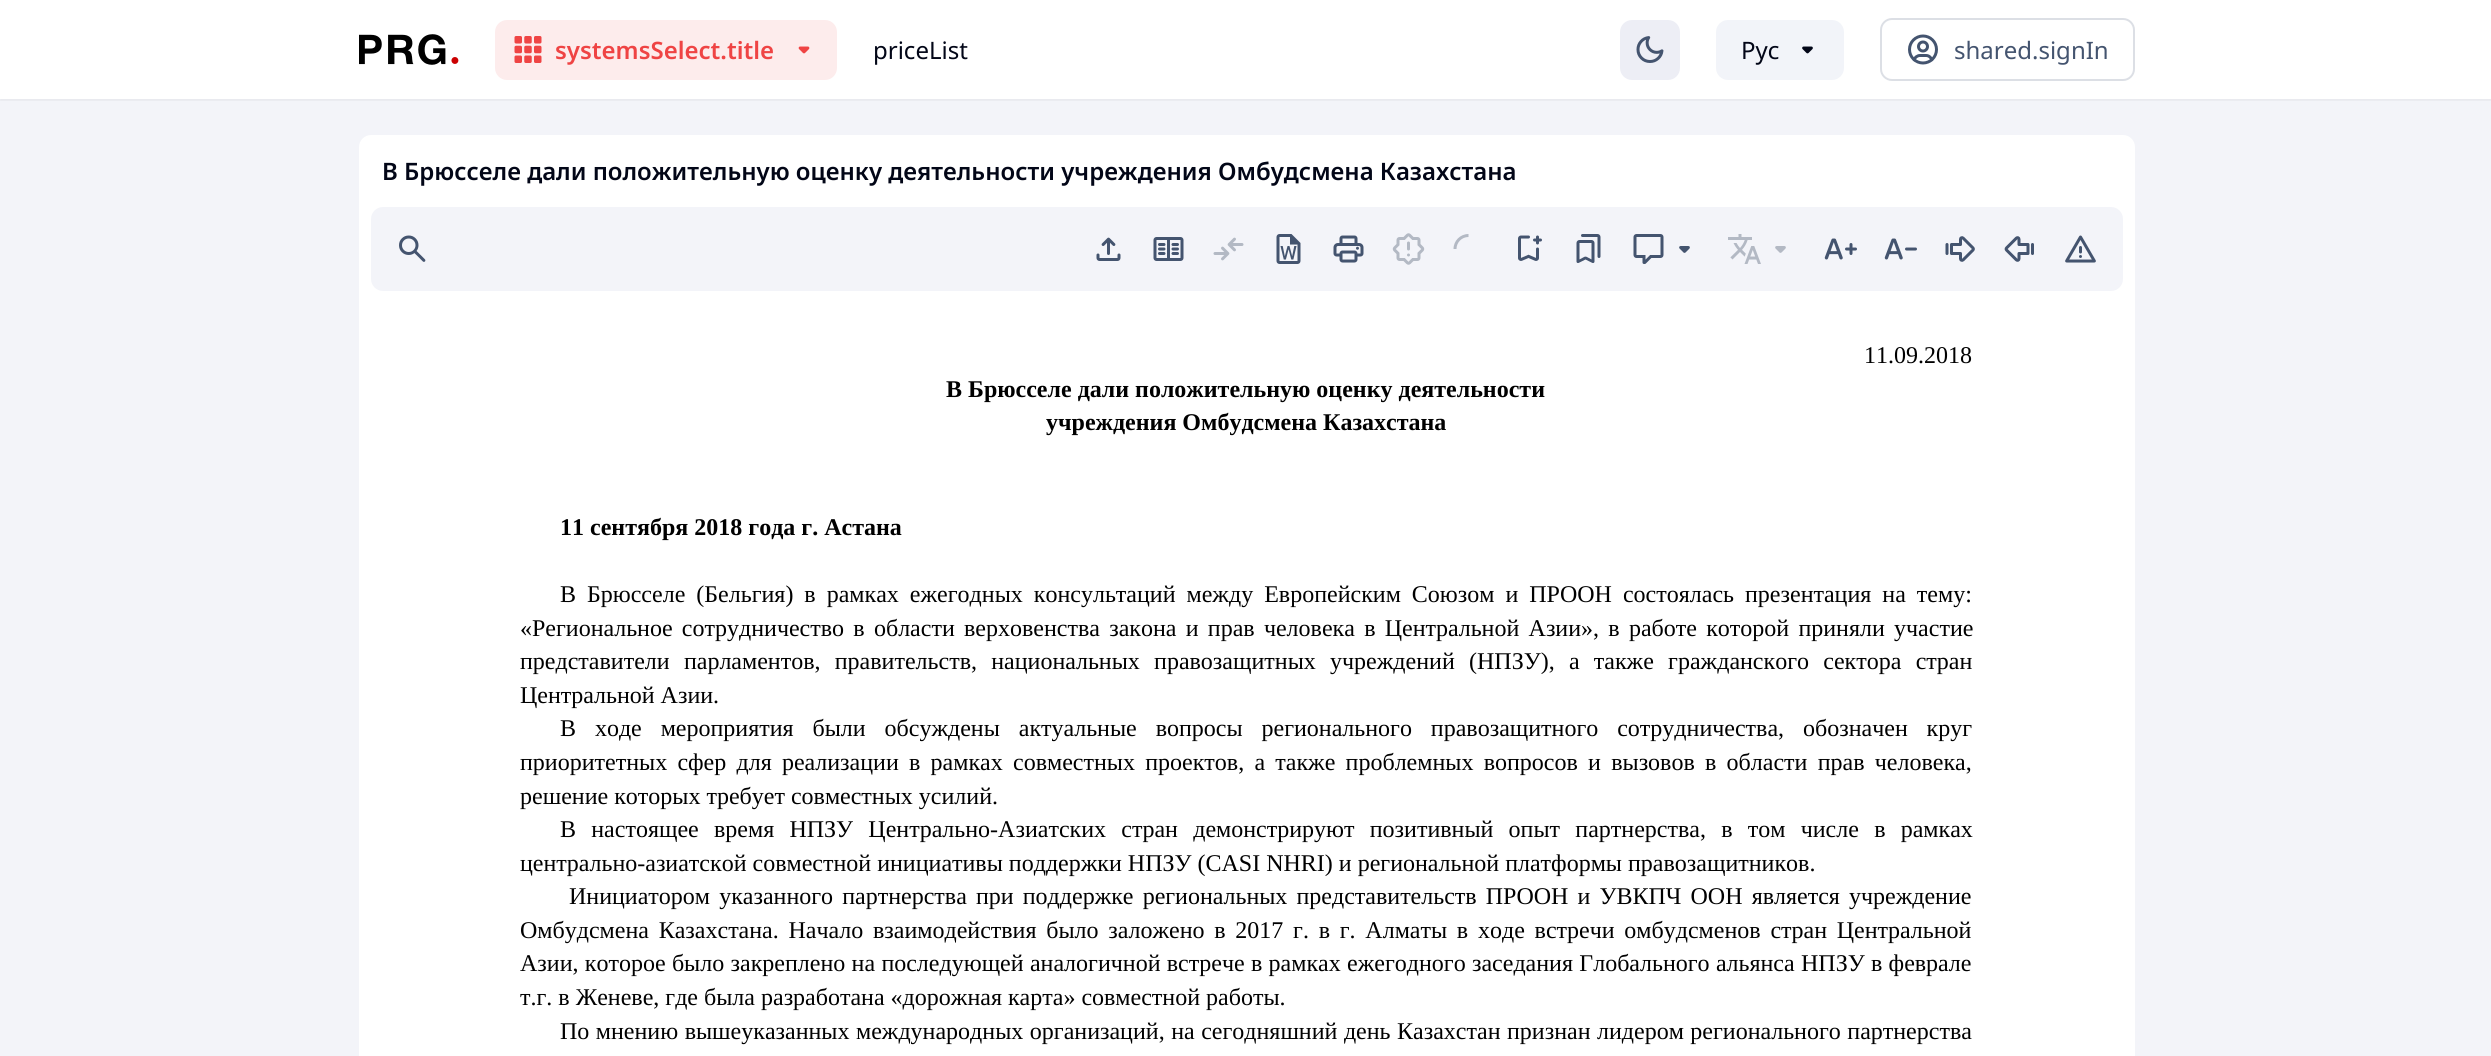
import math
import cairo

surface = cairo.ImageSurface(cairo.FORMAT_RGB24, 2491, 1056)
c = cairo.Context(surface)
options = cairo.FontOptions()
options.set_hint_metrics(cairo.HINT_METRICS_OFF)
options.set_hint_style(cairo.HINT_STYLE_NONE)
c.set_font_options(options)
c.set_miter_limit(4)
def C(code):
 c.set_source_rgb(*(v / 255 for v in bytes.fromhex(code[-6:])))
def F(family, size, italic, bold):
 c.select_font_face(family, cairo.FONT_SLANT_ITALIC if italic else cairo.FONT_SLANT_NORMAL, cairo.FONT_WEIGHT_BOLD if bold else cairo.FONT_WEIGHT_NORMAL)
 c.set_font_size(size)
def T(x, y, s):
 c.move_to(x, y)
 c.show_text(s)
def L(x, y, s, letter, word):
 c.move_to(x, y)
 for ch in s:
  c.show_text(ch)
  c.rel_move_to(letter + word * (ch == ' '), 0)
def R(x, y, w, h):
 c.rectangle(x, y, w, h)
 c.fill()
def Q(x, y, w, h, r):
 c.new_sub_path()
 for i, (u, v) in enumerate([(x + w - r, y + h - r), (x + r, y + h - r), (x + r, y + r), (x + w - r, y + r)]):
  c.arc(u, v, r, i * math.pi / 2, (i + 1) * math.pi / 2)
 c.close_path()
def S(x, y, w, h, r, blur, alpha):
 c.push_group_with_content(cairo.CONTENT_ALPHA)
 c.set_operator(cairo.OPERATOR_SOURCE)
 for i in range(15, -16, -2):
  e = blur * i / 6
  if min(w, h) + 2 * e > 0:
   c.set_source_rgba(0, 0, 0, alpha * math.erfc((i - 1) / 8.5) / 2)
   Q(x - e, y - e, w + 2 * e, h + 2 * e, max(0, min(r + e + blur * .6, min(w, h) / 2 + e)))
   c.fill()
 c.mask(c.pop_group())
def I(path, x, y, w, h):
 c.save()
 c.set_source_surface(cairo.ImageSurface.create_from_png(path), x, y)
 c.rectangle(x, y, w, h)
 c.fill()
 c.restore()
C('ffffff')
c.paint()
C('f3f4f9')
R(0,99,2491,957)
c.save()
c.rectangle(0,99,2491,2)
c.clip()
C('000000')
S(0,2,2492,99,0,1.5,.05)
c.restore()
I('1.png',359,34,100,31)
C('fdecec')
Q(495,20,342,60,12)
c.fill()
I('2.png',514,36,28,27)
F('Noto Sans SemiBold',24,0,0)
C('ef4444')
T(555,59,'systemsSelect.title')
I('3.png',798,46,12,8)
F('Noto Sans',24,0,0)
C('020617')
T(873,59,'priceList')
C('edeef5')
Q(1620,20,60,60,12)
c.fill()
I('4.png',1636,36,28,27)
C('f2f4f9')
Q(1716,20,128,60,12)
c.fill()
C('020617')
T(1741,59,'Рус')
I('5.png',1802,46,11,8)
Q(1881,19,253,61,11)
C('dcdfe5')
c.stroke()
I('6.png',1908,34,30,31)
C('44546f')
T(1954,59,'shared.signIn')
C('ffffff')
c.new_path()
c.move_to(371,135)
c.line_to(2123,135)
c.curve_to(2129.5,135,2135,140.5,2135,147)
c.line_to(2135,207)
c.line_to(359,207)
c.line_to(359,147)
c.curve_to(359,140.5,364.5,135,371,135)
c.close_path()
c.fill()
F('Noto Sans SemiBold',24,0,0)
C('020617')
T(382,180,'В Брюсселе дали положительную оценку деятельности учреждения Омбудсмена Казахстана')
C('ffffff')
R(359,207,1776,849)
C('f3f4f9')
Q(371,207,1752,84,12)
c.fill()
I('7.png',399,235,27,27)
I('8.png',1096,237,25,24)
I('9.png',1153,237,31,24)
I('10.png',1213,237,31,24)
I('11.png',1276,234,25,30)
I('12.png',1333,235,31,28)
I('13.png',1392,233,33,32)
I('14.png',1453,234,16,15)
I('15.png',1518,235,24,26)
I('16.png',1576,234,25,29)
I('17.png',1633,234,31,30)
I('18.png',1679,246,11,7)
I('19.png',1728,234,33,30)
I('20.png',1775,246,11,7)
I('21.png',1824,238,33,22)
I('22.png',1884,238,33,22)
I('23.png',1945,236,30,26)
I('24.png',2004,236,30,26)
I('25.png',2065,235,31,28)
F('Liberation Serif',24,0,0)
C('000000')
T(1864,363,'11.09.2018')
F('Liberation Serif',24,0,1)
T(946,397,'В Брюсселе дали положительную оценку деятельности')
T(1046,430,'учреждения Омбудсмена Казахстана')
T(560,535,'11 сентября 2018 года г. Астана')
F('Liberation Serif',24,0,0)
L(560,602,'В Брюсселе (Бельгия) в рамках ежегодных консультаций между Европейским Союзом и ПРООН состоялась презентация на тему:',0,5)
L(520,636,'«Региональное сотрудничество в области верховенства закона и прав человека в Центральной Азии», в работе которой приняли участие',0,3.25)
L(520,669,'представители парламентов, правительств, национальных правозащитных учреждений (НПЗУ), а также гражданского сектора стран',0,8.25)
T(520,703,'Центральной Азии.')
L(560,736,'В ходе мероприятия были обсуждены актуальные вопросы регионального правозащитного сотрудничества, обозначен круг',0,12.9)
L(520,770,'приоритетных сфер для реализации в рамках совместных проектов, а также проблемных вопросов и вызовов в области прав человека,',0,4.25)
T(520,804,'решение которых требует совместных усилий.')
L(560,837,'В настоящее время НПЗУ Центрально-Азиатских стран демонстрируют позитивный опыт партнерства, в том числе в рамках',0,9.25)
T(520,871,'центрально-азиатской совместной инициативы поддержки НПЗУ (CASI NHRI) и региональной платформы правозащитников.')
L(569,904,'Инициатором указанного партнерства при поддержке региональных представительств ПРООН и УВКПЧ ООН является учреждение',0,3.1)
L(520,938,'Омбудсмена Казахстана. Начало взаимодействия было заложено в 2017 г. в г. Алматы в ходе встречи омбудсменов стран Центральной',0,3.75)
L(520,971,'Азии, которое было закреплено на последующей аналогичной встрече в рамках ежегодного заседания Глобального альянса НПЗУ в феврале',0,.3)
T(520,1005,'т.г. в Женеве, где была разработана «дорожная карта» совместной работы.')
L(560,1039,'По мнению вышеуказанных международных организаций, на сегодняшний день Казахстан признан лидером регионального партнерства',0,.5)
surface.write_to_png('o.png')
